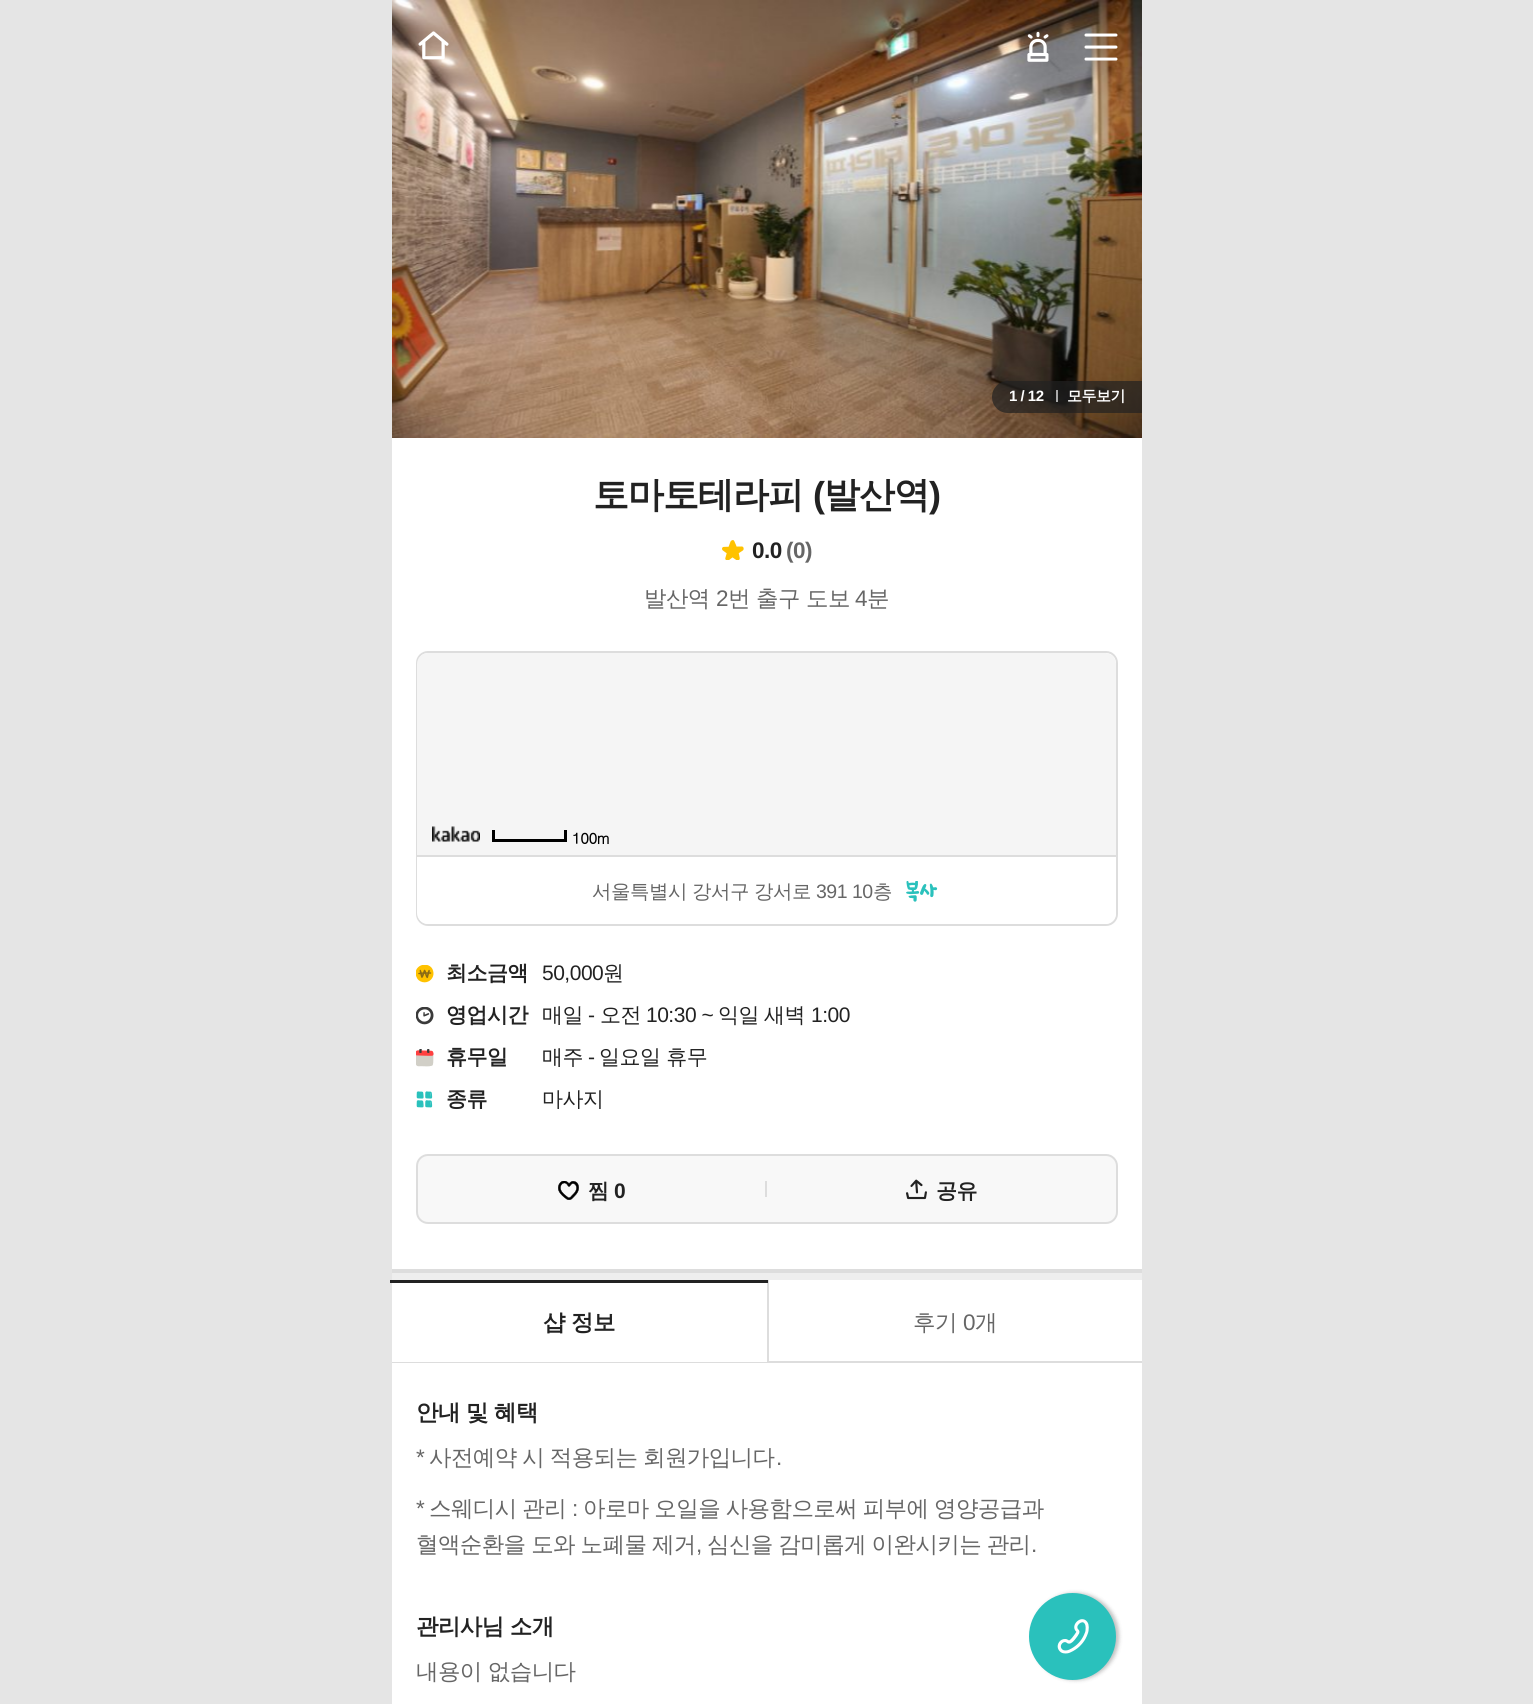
import math
import cairo

surface = cairo.ImageSurface(cairo.FORMAT_RGB24, 1533, 1704)
c = cairo.Context(surface)
options = cairo.FontOptions()
options.set_hint_metrics(cairo.HINT_METRICS_OFF)
options.set_hint_style(cairo.HINT_STYLE_NONE)
c.set_font_options(options)
c.set_miter_limit(4)
def C(code):
 c.set_source_rgb(*(v / 255 for v in bytes.fromhex(code[-6:])))
def F(family, size, italic, bold):
 c.select_font_face(family, cairo.FONT_SLANT_ITALIC if italic else cairo.FONT_SLANT_NORMAL, cairo.FONT_WEIGHT_BOLD if bold else cairo.FONT_WEIGHT_NORMAL)
 c.set_font_size(size)
def L(x, y, s, letter, word):
 c.move_to(x, y)
 for ch in s:
  c.show_text(ch)
  c.rel_move_to(letter + word * (ch == ' '), 0)
def R(x, y, w, h):
 c.rectangle(x, y, w, h)
 c.fill()
def Q(x, y, w, h, r):
 c.new_sub_path()
 for i, (u, v) in enumerate([(x + w - r, y + h - r), (x + r, y + h - r), (x + r, y + r), (x + w - r, y + r)]):
  c.arc(u, v, r, i * math.pi / 2, (i + 1) * math.pi / 2)
 c.close_path()
def S(x, y, w, h, r, blur, alpha):
 c.push_group_with_content(cairo.CONTENT_ALPHA)
 c.set_operator(cairo.OPERATOR_SOURCE)
 for i in range(15, -16, -2):
  e = blur * i / 6
  if min(w, h) + 2 * e > 0:
   c.set_source_rgba(0, 0, 0, alpha * math.erfc((i - 1) / 8.5) / 2)
   Q(x - e, y - e, w + 2 * e, h + 2 * e, max(0, min(r + e + blur * .6, min(w, h) / 2 + e)))
   c.fill()
 c.mask(c.pop_group())
def I(path, x, y, w, h):
 c.save()
 c.set_source_surface(cairo.ImageSurface.create_from_png(path), x, y)
 c.rectangle(x, y, w, h)
 c.fill()
 c.restore()
C('e5e5e5')
c.paint()
I('4.png',392,0,750,438)
I('1.png',418,31,31,29)
I('2.png',1027,31,22,31)
I('3.png',1084,33,34,28)
c.set_source_rgba(0.133,0.133,0.133,0.7)
c.new_path()
c.move_to(1008,381)
c.line_to(1142,381)
c.line_to(1142,413)
c.line_to(1008,413)
c.curve_to(999,413,992,406,992,397)
c.curve_to(992,388,999,381,1008,381)
c.close_path()
c.fill()
F('Liberation Sans',15,0,1)
C('ffffff')
L(1009,401,'1 / 12',-.5,0)
C('aaaaaa')
R(1056,390,2,12)
F('WenQuanYi Zen Hei',15,0,1)
C('ffffff')
L(1067,401,'모두보기',-.5,0)
R(392,438,750,1266)
F('WenQuanYi Zen Hei',36,0,1)
C('222222')
L(593,507,'토마토테라피',-1,0)
F('Liberation Sans',36,0,1)
L(813,507,'(',-1,0)
F('WenQuanYi Zen Hei',36,0,1)
L(824,507,'발산역',-1,0)
F('Liberation Sans',36,0,1)
L(929,507,')',-1,0)
I('5.png',722,540,22,20)
F('Liberation Sans',22.5,0,1)
L(752,558,'0.0',-.5,0)
C('666666')
L(786,558,'(0)',-.5,0)
F('WenQuanYi Zen Hei Medium',22.5,0,0)
L(644,606,'발산역',-.6,0)
F('Liberation Sans',22.5,0,0)
L(716,606,'2',-.6,0)
F('WenQuanYi Zen Hei Medium',22.5,0,0)
L(728,606,'번 출구 도보',-.6,0)
F('Liberation Sans',22.5,0,0)
L(855,606,'4',-.6,0)
F('WenQuanYi Zen Hei Medium',22.5,0,0)
L(867,606,'분',-.6,0)
Q(417,652,700,273,11)
C('dddddd')
c.stroke()
C('f5f5f5')
c.new_path()
c.move_to(428,653)
c.line_to(1105,653)
c.curve_to(1111,653,1116,658,1116,664)
c.line_to(1116,855)
c.line_to(417,855)
c.line_to(417,664)
c.curve_to(417,658,422,653,428,653)
c.close_path()
c.fill()
I('6.png',432,826,48,16)
C('000000')
R(564,830,3,12)
R(492,839,75,3)
R(492,830,3,12)
F('Dotum',15,0,1)
L(572,844,'100m',-.5,0)
C('ffffff')
c.new_path()
c.move_to(417,855)
c.line_to(1116,855)
c.line_to(1116,913)
c.curve_to(1116,919,1111,924,1105,924)
c.line_to(428,924)
c.curve_to(422,924,417,919,417,913)
c.close_path()
c.fill()
C('dddddd')
R(417,855,699,2)
F('WenQuanYi Zen Hei Medium',19.5,0,0)
C('666666')
L(592,898,'서울특별시',-.5,0)
L(692,898,'강서구',-.5,0)
L(754,898,'강서로',-.5,0)
F('Liberation Sans',19.5,0,0)
L(816,898,'391 10',-.5,0)
F('WenQuanYi Zen Hei Medium',19.5,0,0)
L(873,898,'층',-.5,0)
I('7.png',906,881,32,21)
I('8.png',416,965,18,18)
F('WenQuanYi Zen Hei',21,0,1)
C('222222')
L(446,980,'최소금액',-.5,0)
F('Liberation Sans',21,0,0)
L(542,980,'50,000',-.5,0)
F('WenQuanYi Zen Hei Medium',21,0,0)
L(603,980,'원',-.5,0)
I('9.png',416,1007,18,18)
F('WenQuanYi Zen Hei',21,0,1)
L(446,1022,'영업시간',-.5,0)
F('WenQuanYi Zen Hei Medium',21,0,0)
L(542,1022,'매일',-.5,0)
F('Liberation Sans',21,0,0)
L(588,1022,'-',-.5,0)
F('WenQuanYi Zen Hei Medium',21,0,0)
L(600,1022,'오전',-.5,0)
F('Liberation Sans',21,0,0)
L(646,1022,'10:30 ~',-.5,0)
F('WenQuanYi Zen Hei Medium',21,0,0)
L(718,1022,'익일',-.5,0)
L(764,1022,'새벽',-.5,0)
F('Liberation Sans',21,0,0)
L(811,1022,'1:00',-.5,0)
I('10.png',416,1049,18,18)
F('WenQuanYi Zen Hei',21,0,1)
L(446,1064,'휴무일',-.5,0)
F('WenQuanYi Zen Hei Medium',21,0,0)
L(542,1064,'매주',-.5,0)
F('Liberation Sans',21,0,0)
L(588,1064,'-',-.5,0)
F('WenQuanYi Zen Hei Medium',21,0,0)
L(599,1064,'일요일 휴무',-.5,0)
I('11.png',416,1091,17,17)
F('WenQuanYi Zen Hei',21,0,1)
L(446,1106,'종류',-.5,0)
F('WenQuanYi Zen Hei Medium',21,0,0)
L(542,1106,'마사지',-.5,0)
C('f8f8f8')
Q(417,1155,700,68,11)
c.fill_preserve()
C('dddddd')
c.stroke()
I('12.png',558,1181,21,19)
F('WenQuanYi Zen Hei',21,0,1)
C('222222')
L(588,1198,'찜',-.5,0)
F('Liberation Sans',21,0,1)
L(614,1198,'0',-.5,0)
C('dddddd')
R(765,1181,2,16)
I('13.png',906,1179,21,21)
F('WenQuanYi Zen Hei',21,0,1)
C('222222')
L(936,1198,'공유',-.5,0)
C('eeeeee')
R(392,1273,750,7)
C('dddddd')
R(392,1269,750,4)
R(392,1361,750,2)
C('ffffff')
R(392,1361,375,1)
C('dddddd')
R(767,1280,2,82)
C('222222')
R(390,1280,378,3)
F('WenQuanYi Zen Hei',22.5,0,1)
L(543,1330,'샵 정보',-.6,0)
F('WenQuanYi Zen Hei Medium',22.5,0,0)
C('666666')
L(913,1330,'후기',-.6,0)
F('Liberation Sans',22.5,0,0)
L(963,1330,'0',-.6,0)
F('WenQuanYi Zen Hei Medium',22.5,0,0)
L(975,1330,'개',-.6,0)
F('WenQuanYi Zen Hei',22.5,0,1)
C('222222')
L(416,1420,'안내 및 혜택',-.6,0)
F('Liberation Sans',22.5,0,0)
C('666666')
L(416,1465,'*',-.6,0)
F('WenQuanYi Zen Hei Medium',22.5,0,0)
L(429,1465,'사전예약 시 적용되는 회원가입니다',-.6,-.5)
F('Liberation Sans',22.5,0,0)
L(776,1465,'.',-.6,0)
L(416,1516,'*',-.6,0)
F('WenQuanYi Zen Hei Medium',22.5,0,0)
L(429,1516,'스웨디시 관리',-.6,-.5)
F('Liberation Sans',22.5,0,0)
L(572,1516,':',-.6,0)
F('WenQuanYi Zen Hei Medium',22.5,0,0)
L(583,1516,'아로마 오일을 사용함으로써 피부에 영양공급과',-.6,-.5)
L(416,1552,'혈액순환을 도와 노폐물 제거',-.6,-.5)
F('Liberation Sans',22.5,0,0)
L(696,1552,',',-.6,0)
F('WenQuanYi Zen Hei Medium',22.5,0,0)
L(707,1552,'심신을 감미롭게 이완시키는 관리',-.6,-.5)
F('Liberation Sans',22.5,0,0)
L(1031,1552,'.',-.6,0)
F('WenQuanYi Zen Hei',22.5,0,1)
C('222222')
L(416,1634,'관리사님 소개',-.6,0)
F('WenQuanYi Zen Hei Medium',22.5,0,0)
C('666666')
L(416,1679,'내용이 없습니다',-.6,0)
C('000000')
S(1032,1593,87,87,43.5,2,.25)
C('2ac1bc')
c.arc(1072.5,1636.5,43.5,0,2 * math.pi)
c.fill()
I('14.png',1057,1619,32,35)
surface.write_to_png('o.png')
